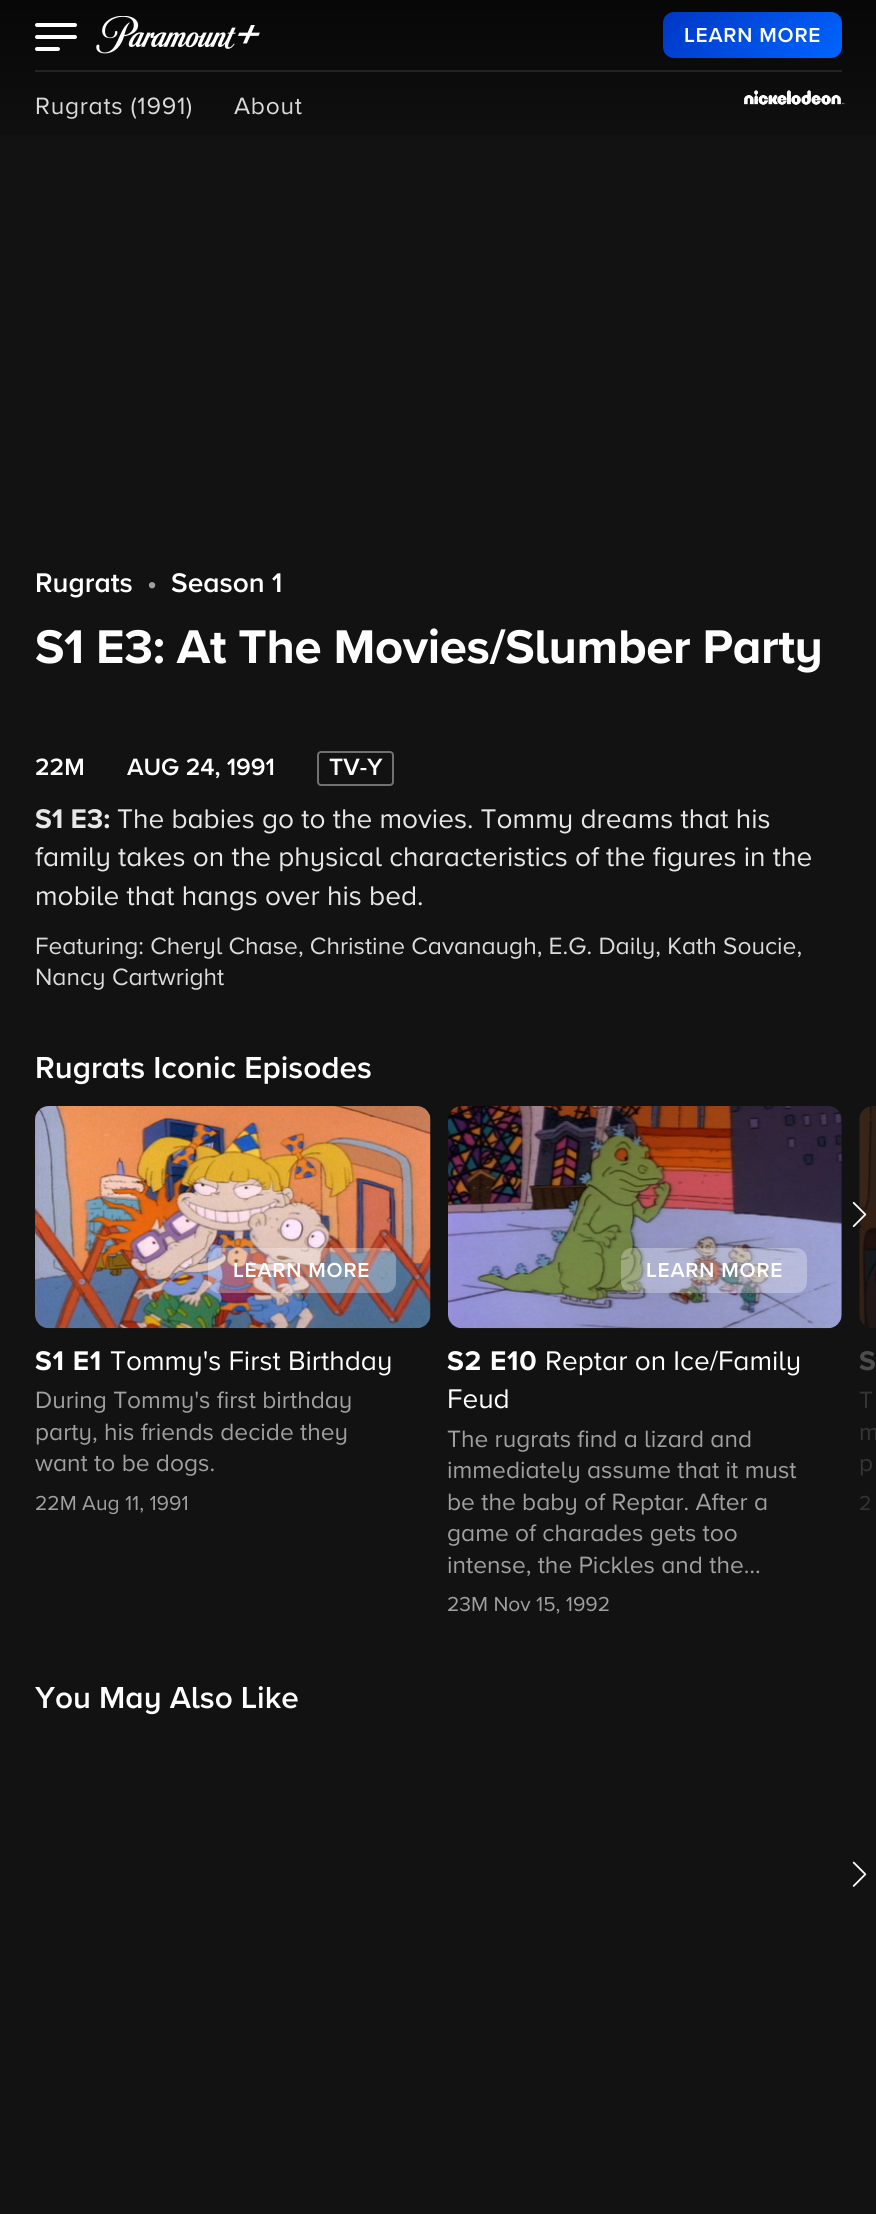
import math
import cairo

surface = cairo.ImageSurface(cairo.FORMAT_RGB24, 876, 2214)
c = cairo.Context(surface)
options = cairo.FontOptions()
options.set_hint_metrics(cairo.HINT_METRICS_OFF)
options.set_hint_style(cairo.HINT_STYLE_NONE)
c.set_font_options(options)
c.set_miter_limit(4)
def C(code):
 c.set_source_rgb(*(v / 255 for v in bytes.fromhex(code[-6:])))
def F(family, size, italic, bold):
 c.select_font_face(family, cairo.FONT_SLANT_ITALIC if italic else cairo.FONT_SLANT_NORMAL, cairo.FONT_WEIGHT_BOLD if bold else cairo.FONT_WEIGHT_NORMAL)
 c.set_font_size(size)
def T(x, y, s):
 c.move_to(x, y)
 c.show_text(s)
def L(x, y, s, letter, word):
 c.move_to(x, y)
 for ch in s:
  c.show_text(ch)
  c.rel_move_to(letter + word * (ch == ' '), 0)
def R(x, y, w, h):
 c.rectangle(x, y, w, h)
 c.fill()
def Q(x, y, w, h, r):
 c.new_sub_path()
 for i, (u, v) in enumerate([(x + w - r, y + h - r), (x + r, y + h - r), (x + r, y + r), (x + w - r, y + r)]):
  c.arc(u, v, r, i * math.pi / 2, (i + 1) * math.pi / 2)
 c.close_path()
def I(path, x, y, w, h):
 c.save()
 c.set_source_surface(cairo.ImageSurface.create_from_png(path), x, y)
 c.rectangle(x, y, w, h)
 c.fill()
 c.restore()
C('121212')
c.paint()
gradient = cairo.LinearGradient(438,0,438,175)
gradient.add_color_stop_rgba(0,0.027,0.027,0.027,1)
gradient.add_color_stop_rgba(1,0.071,0.071,0.071,1)
c.set_source(gradient)
R(0,0,876,135)
C('ffffff')
Q(35,23,42,4,2)
c.fill()
Q(35,35,42,4,2)
c.fill()
Q(35,47,25,4,2)
c.fill()
I('1.png',96,16,164,38)
gradient = cairo.LinearGradient(697,-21,809,91)
gradient.add_color_stop_rgba(0,0,0.216,0.773,1)
gradient.add_color_stop_rgba(1,0,0.392,1,1)
c.set_source(gradient)
Q(663,12,179,46,11)
c.fill()
F('Proxima Nova',21,0,0)
C('ffffff')
L(684,42,'LEARN MORE',.75,0)
C('232323')
R(35,70,807,2)
F('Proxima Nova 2',24.5,0,0)
C('dbdbdb')
L(35,114,'Rugrats (1991)',.75,0)
L(234,114,'About',.75,0)
I('2.png',744,90,101,15)
F('Proxima Nova',28,0,0)
C('ffffff')
T(35,592,'Rugrats')
C('a0a0a0')
T(147,592,'•')
C('ffffff')
T(171,592,'Season 1')
F('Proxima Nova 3',49,0,0)
L(35,663,'S1 E3: At The Movies/Slumber Party',-.35,0)
F('Proxima Nova',24.5,0,0)
T(35,775,'22M')
T(127,775,'AUG 24, 1991')
Q(318,752,75,33,3)
C('717171')
c.stroke()
C('ffffff')
T(329,775,'TV-Y')
F('Proxima Nova 3',28,0,0)
C('e7e7e7')
T(35,828,'S1 E3:')
F('Proxima Nova 2',28,0,0)
T(117,828,'The babies go to the movies. Tommy dreams that his')
T(35,866,'family takes on the physical characteristics of the figures in the')
T(35,905,'mobile that hangs over his bed.')
F('Proxima Nova 2',24.5,0,0)
C('dbdbdb')
T(35,954,'Featuring: Cheryl Chase, Christine Cavanaugh, E.G. Daily, Kath Soucie,')
T(35,985,'Nancy Cartwright')
F('Proxima Nova',31.5,0,0)
C('ffffff')
T(35,1078,'Rugrats Iconic Episodes')
I('6.png',859,1106,17,222)
I('3.png',852,1202,15,26)
I('4.png',35,1106,396,223)
c.set_source_rgba(1,1,1,0.3)
Q(208,1248,188,45,11)
c.fill()
F('Proxima Nova',21,0,0)
C('ffffff')
L(233,1277,'LEARN MORE',.75,0)
F('Proxima Nova 3',28,0,0)
L(35,1370,'S1 E1',.75,0)
F('Proxima Nova 2',28,0,0)
T(110,1370,'Tommy\'s First Birthday')
F('Proxima Nova 2',24.5,0,0)
C('a0a0a0')
T(35,1408,'During Tommy\'s first birthday')
T(35,1440,'party, his friends decide they')
T(35,1471,'want to be dogs.')
F('Proxima Nova 2',21,0,0)
T(35,1510,'22M Aug 11, 1991')
I('5.png',448,1106,394,223)
c.set_source_rgba(1,1,1,0.3)
Q(621,1248,186,45,11)
c.fill()
F('Proxima Nova',21,0,0)
C('ffffff')
L(646,1277,'LEARN MORE',.75,0)
F('Proxima Nova 3',28,0,0)
L(447,1370,'S2 E10',.75,0)
F('Proxima Nova 2',28,0,0)
T(545,1370,'Reptar on Ice/Family')
T(447,1408,'Feud')
F('Proxima Nova 2',24.5,0,0)
C('a0a0a0')
T(447,1447,'The rugrats find a lizard and')
T(447,1478,'immediately assume that it must')
T(447,1510,'be the baby of Reptar. After a')
T(447,1541,'game of charades gets too')
T(447,1573,'intense, the Pickles and the…')
F('Proxima Nova 2',21,0,0)
T(447,1611,'23M Nov 15, 1992')
F('Proxima Nova 3',28,0,0)
C('4d4d4d')
L(859,1370,'S',.75,0)
F('Proxima Nova 2',24.5,0,0)
C('353535')
T(859,1408,'T')
T(859,1440,'m')
T(859,1471,'p')
F('Proxima Nova 2',21,0,0)
T(859,1510,'2')
F('Proxima Nova',31.5,0,0)
C('ffffff')
T(35,1708,'You May Also Like')
I('7.png',852,1861,15,26)
surface.write_to_png('o.png')
